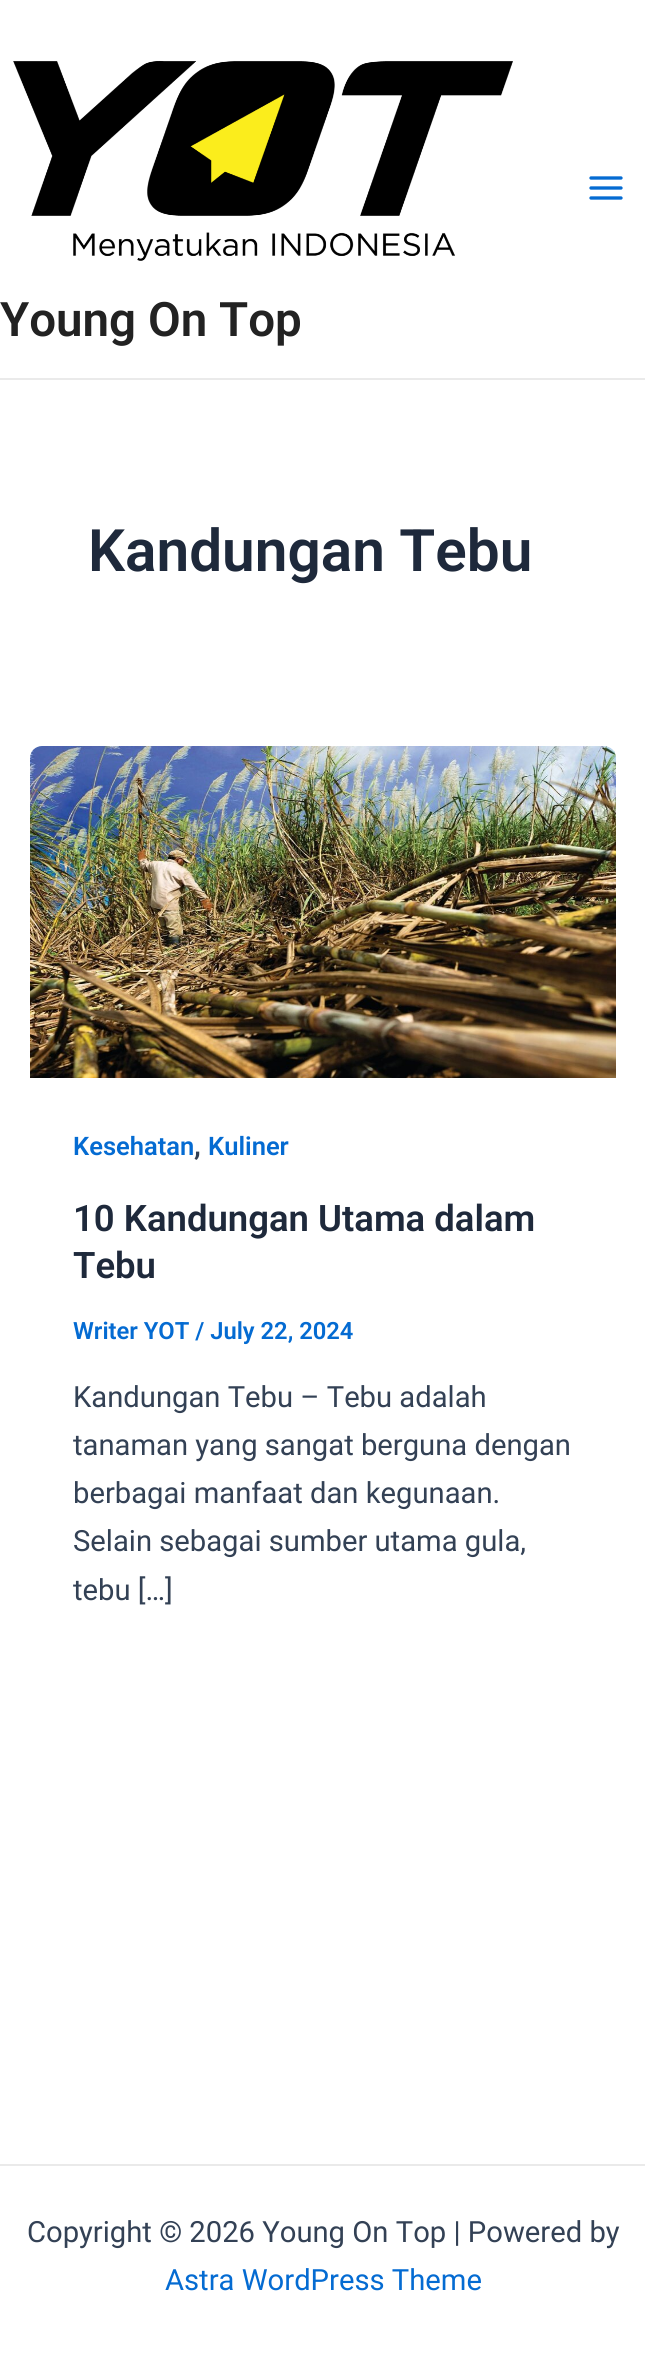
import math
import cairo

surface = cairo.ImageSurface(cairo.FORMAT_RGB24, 645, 2365)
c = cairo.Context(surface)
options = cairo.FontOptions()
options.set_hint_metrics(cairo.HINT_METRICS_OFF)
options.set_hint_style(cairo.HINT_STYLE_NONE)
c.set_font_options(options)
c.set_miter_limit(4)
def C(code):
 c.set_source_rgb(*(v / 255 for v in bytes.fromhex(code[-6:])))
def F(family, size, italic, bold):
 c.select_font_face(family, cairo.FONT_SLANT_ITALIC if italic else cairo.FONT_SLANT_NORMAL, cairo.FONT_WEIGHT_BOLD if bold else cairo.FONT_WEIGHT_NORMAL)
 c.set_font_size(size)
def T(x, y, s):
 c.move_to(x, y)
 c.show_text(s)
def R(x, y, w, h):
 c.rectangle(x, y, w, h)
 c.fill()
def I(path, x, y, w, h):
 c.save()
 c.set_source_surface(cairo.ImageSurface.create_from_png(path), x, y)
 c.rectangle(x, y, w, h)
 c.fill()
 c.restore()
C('ffffff')
c.paint()
C('eaeaea')
R(0,378,645,2)
I('1.png',589,176,34,24)
I('2.png',13,60,500,201)
F('Roboto SemiBold',47.5,0,0)
C('222222')
T(0,336,'Young On Top')
F('Roboto SemiBold',58.5,0,0)
C('1e293b')
T(88,571,'Kandungan Tebu')
I('3.png',30,746,586,332)
F('Roboto SemiBold',25.5,0,0)
C('046bd2')
T(73,1155,'Kesehatan')
F('Roboto SemiBold',29.2,0,0)
C('334155')
T(194,1155,',')
F('Roboto SemiBold',25.5,0,0)
C('046bd2')
T(208,1155,'Kuliner')
F('Roboto SemiBold',36.5,0,0)
C('1e293b')
T(73,1231,'10 Kandungan Utama dalam')
T(73,1278,'Tebu')
F('Roboto SemiBold',23.75,0,0)
C('046bd2')
T(73,1339,'Writer YOT / July 22, 2024')
F('Roboto',29.2,0,0)
C('334155')
T(73,1407,'Kandungan Tebu – Tebu adalah')
T(73,1455,'tanaman yang sangat berguna dengan')
T(73,1503,'berbagai manfaat dan kegunaan.')
T(73,1551,'Selain sebagai sumber utama gula,')
T(73,1600,'tebu […]')
C('eaeaea')
R(0,2164,645,2)
C('334155')
T(27,2242,'Copyright © 2026 Young On Top | Powered by')
C('046bd2')
T(165,2290,'Astra WordPress Theme')
surface.write_to_png('o.png')
